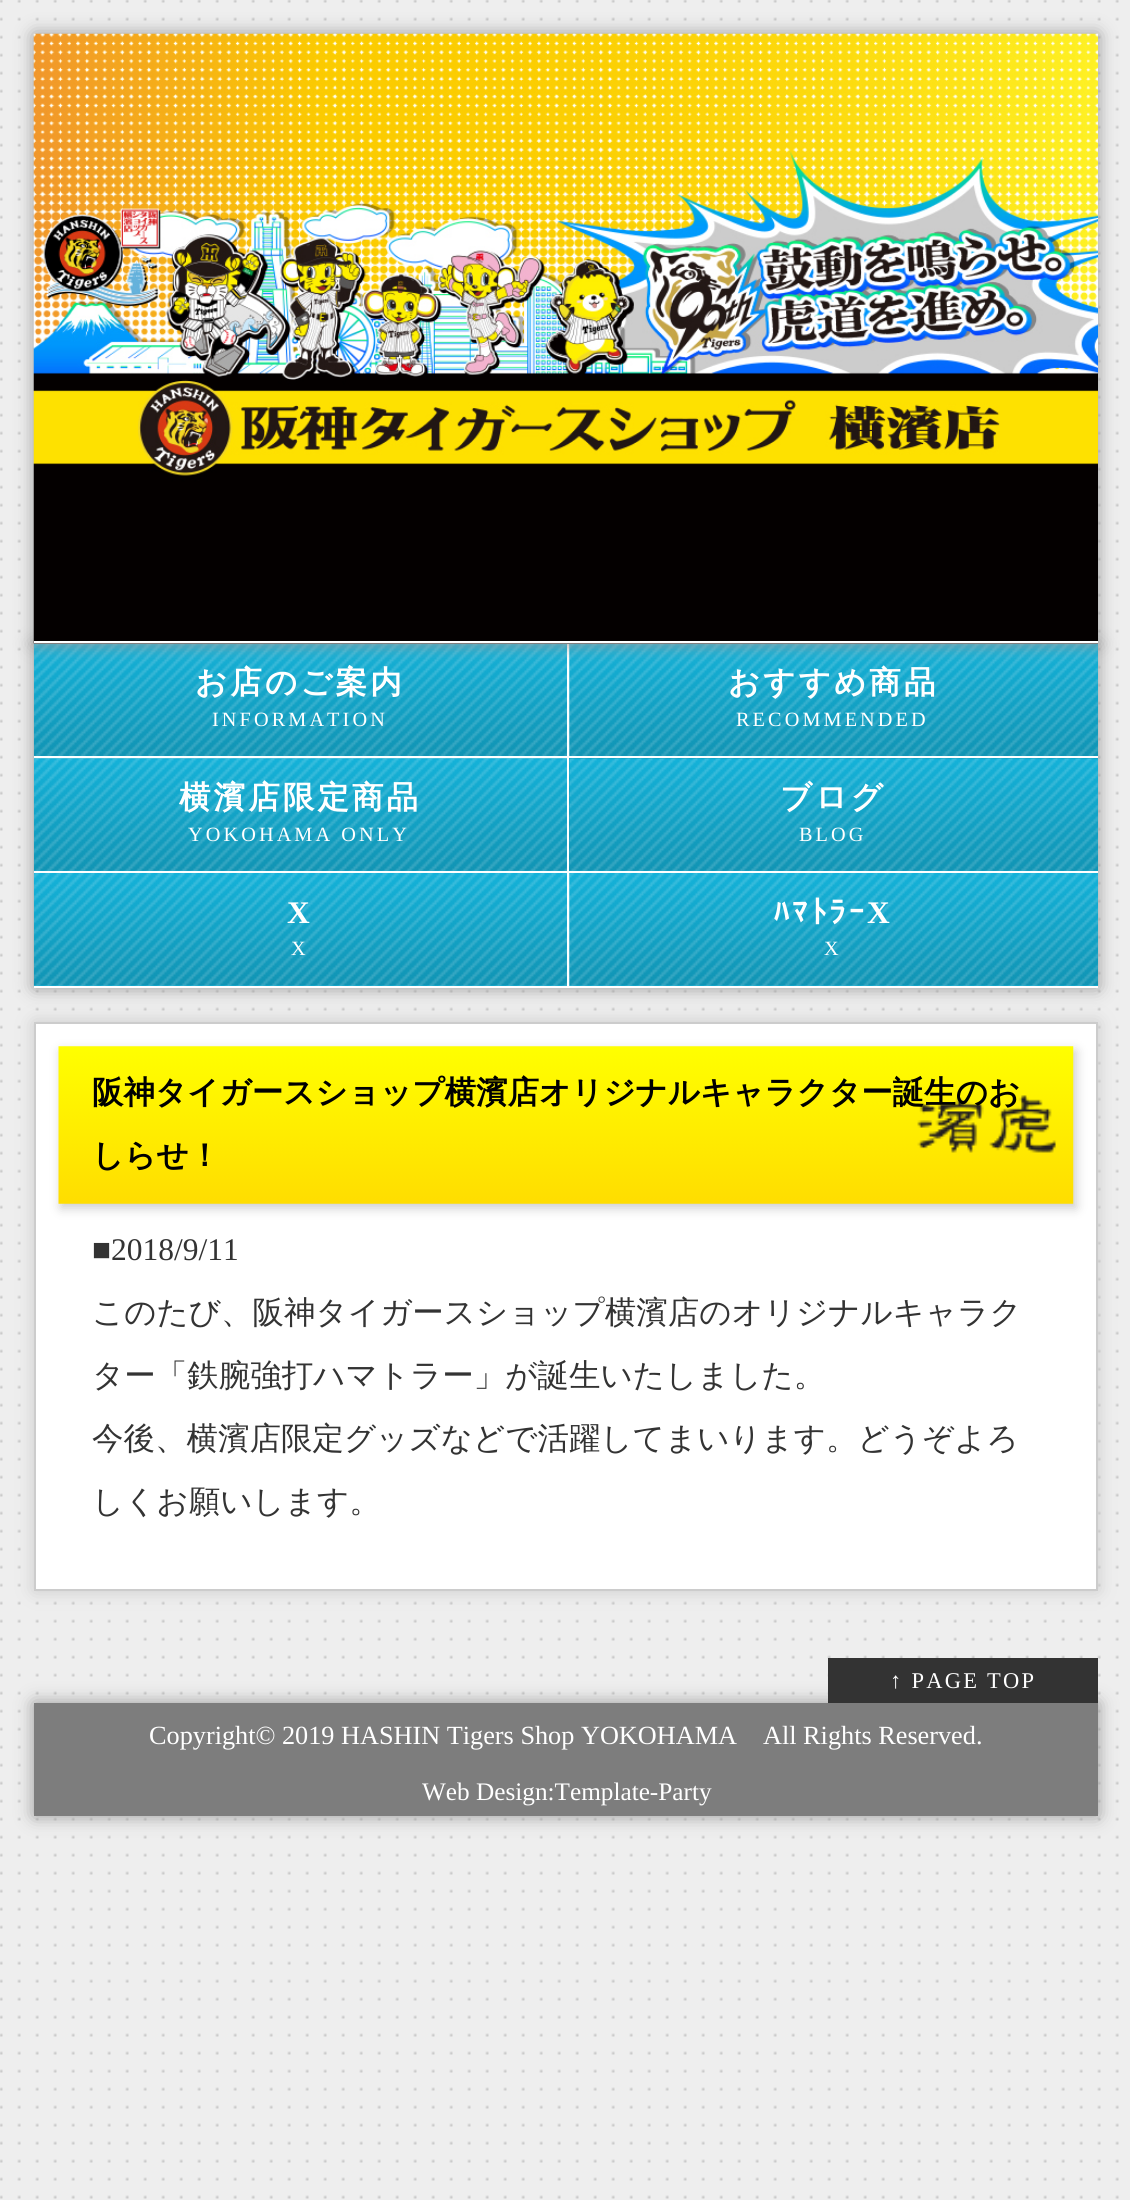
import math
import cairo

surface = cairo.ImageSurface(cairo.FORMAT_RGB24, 1130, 2200)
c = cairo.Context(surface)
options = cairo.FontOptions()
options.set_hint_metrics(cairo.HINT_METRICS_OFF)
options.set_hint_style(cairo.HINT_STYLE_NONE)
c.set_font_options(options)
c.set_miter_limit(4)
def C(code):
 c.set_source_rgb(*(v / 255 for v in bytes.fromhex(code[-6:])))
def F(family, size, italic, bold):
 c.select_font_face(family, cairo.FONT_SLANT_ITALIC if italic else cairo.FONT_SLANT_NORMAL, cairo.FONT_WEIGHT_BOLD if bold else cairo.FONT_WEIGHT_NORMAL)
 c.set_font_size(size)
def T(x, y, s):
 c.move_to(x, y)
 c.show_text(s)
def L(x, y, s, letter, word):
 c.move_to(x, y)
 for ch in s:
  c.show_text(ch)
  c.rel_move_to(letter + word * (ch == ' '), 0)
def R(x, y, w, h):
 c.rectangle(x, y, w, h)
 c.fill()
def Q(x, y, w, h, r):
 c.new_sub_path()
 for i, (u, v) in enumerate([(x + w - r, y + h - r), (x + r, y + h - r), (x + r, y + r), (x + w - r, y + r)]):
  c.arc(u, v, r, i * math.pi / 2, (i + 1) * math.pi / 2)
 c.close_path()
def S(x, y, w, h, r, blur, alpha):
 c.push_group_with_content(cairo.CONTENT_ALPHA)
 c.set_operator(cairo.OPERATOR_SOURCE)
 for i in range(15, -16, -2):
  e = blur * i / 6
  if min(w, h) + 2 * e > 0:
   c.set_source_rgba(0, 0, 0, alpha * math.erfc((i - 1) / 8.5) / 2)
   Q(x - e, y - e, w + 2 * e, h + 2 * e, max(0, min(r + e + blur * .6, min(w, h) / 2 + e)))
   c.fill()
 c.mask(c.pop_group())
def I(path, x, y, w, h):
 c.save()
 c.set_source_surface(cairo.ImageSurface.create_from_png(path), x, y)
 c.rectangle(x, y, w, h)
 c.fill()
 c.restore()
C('eeeeee')
c.paint()
I('1.png',0,0,1119,2199)
C('999999')
S(34,644,1064,344,0,9,1)
C('ffffff')
R(34,644,536,344)
I('3.png',33,644,534,115)
I('4.png',569,644,529,112)
C('999999')
S(34,34,1064,610,0,9,1)
C('ffffff')
R(34,643,1064,1)
I('2.png',33,33,1065,611)
R(34,641,1064,2)
R(34,756,533,2)
F('WenQuanYi Zen Hei',31.5,0,1)
L(195,693,'お店のご案内',3.1,0)
F('Liberation Serif',20.25,0,0)
L(212,726,'INFORMATION',3.1,0)
R(569,756,529,2)
F('WenQuanYi Zen Hei',31.5,0,1)
L(728,693,'おすすめ商品',3.1,0)
F('Liberation Serif',20.25,0,0)
L(736,726,'RECOMMENDED',3.1,0)
I('5.png',33,758,534,115)
R(34,871,533,2)
F('WenQuanYi Zen Hei',31.5,0,1)
L(179,808,'横濱店限定商品',3.1,0)
F('Liberation Serif',20.25,0,0)
L(188,841,'YOKOHAMA ONLY',3.1,0)
C('1194b4')
R(569,758,529,113)
I('6.png',569,758,529,113)
C('ffffff')
R(569,871,529,2)
F('WenQuanYi Zen Hei',31.5,0,1)
L(780,808,'ブログ',3.1,0)
F('Liberation Serif',20.25,0,0)
L(799,841,'BLOG',3.1,0)
I('7.png',33,873,534,115)
R(34,986,533,2)
F('Liberation Serif',31.5,0,1)
L(287,923,'X',3.1,0)
F('Liberation Serif',20.25,0,0)
L(291,955,'X',3.1,0)
I('8.png',569,873,529,113)
R(569,986,529,2)
F('IPAPGothic',31.5,0,1)
L(773,923,'ﾊﾏﾄﾗｰ',3.1,0)
F('Liberation Serif',31.5,0,1)
L(867,923,'X',3.1,0)
F('Liberation Serif',20.25,0,0)
L(824,955,'X',3.1,0)
C('cccccc')
S(34,1022,1064,569,0,9,1)
C('ffffff')
c.rectangle(35,1023,1062,567)
c.fill_preserve()
C('cccccc')
c.stroke()
C('cccccc')
S(61,1051,1015,157,0,5.5,1)
I('9.png',58,1046,1016,158)
F('WenQuanYi Zen Hei',31.5,0,1)
C('000000')
T(92,1103,'阪神タイガースショップ横濱店オリジナルキャラクター誕生のお')
T(92,1166,'しらせ！')
F('Liberation Serif',31.5,0,0)
C('333333')
T(92,1260,'■2018/9/11')
F('WenQuanYi Zen Hei Medium',31.5,0,0)
T(92,1323,'このたび、阪神タイガースショップ横濱店のオリジナルキャラク')
T(92,1386,'ター「鉄腕強打ハマトラー」が誕生いたしました。')
T(92,1449,'今後、横濱店限定グッズなどで活躍してまいります。どうぞよろ')
T(92,1512,'しくお願いします。')
C('999999')
S(34,1703,1064,113,0,9,1)
C('333333')
R(828,1658,270,45)
F('Liberation Serif',22.5,0,0)
C('ffffff')
L(890,1688,'↑ PAGE TOP',2.25,0)
C('7d7d7d')
R(34,1703,1064,113)
F('Liberation Serif',26.25,0,0)
C('ffffff')
T(149,1744,'Copyright© 2019 HASHIN Tigers Shop YOKOHAMA')
T(763,1744,'All Rights Reserved.')
F('Liberation Serif',25.25,0,0)
T(422,1800,'Web Design:Template-Party')
surface.write_to_png('o.png')
